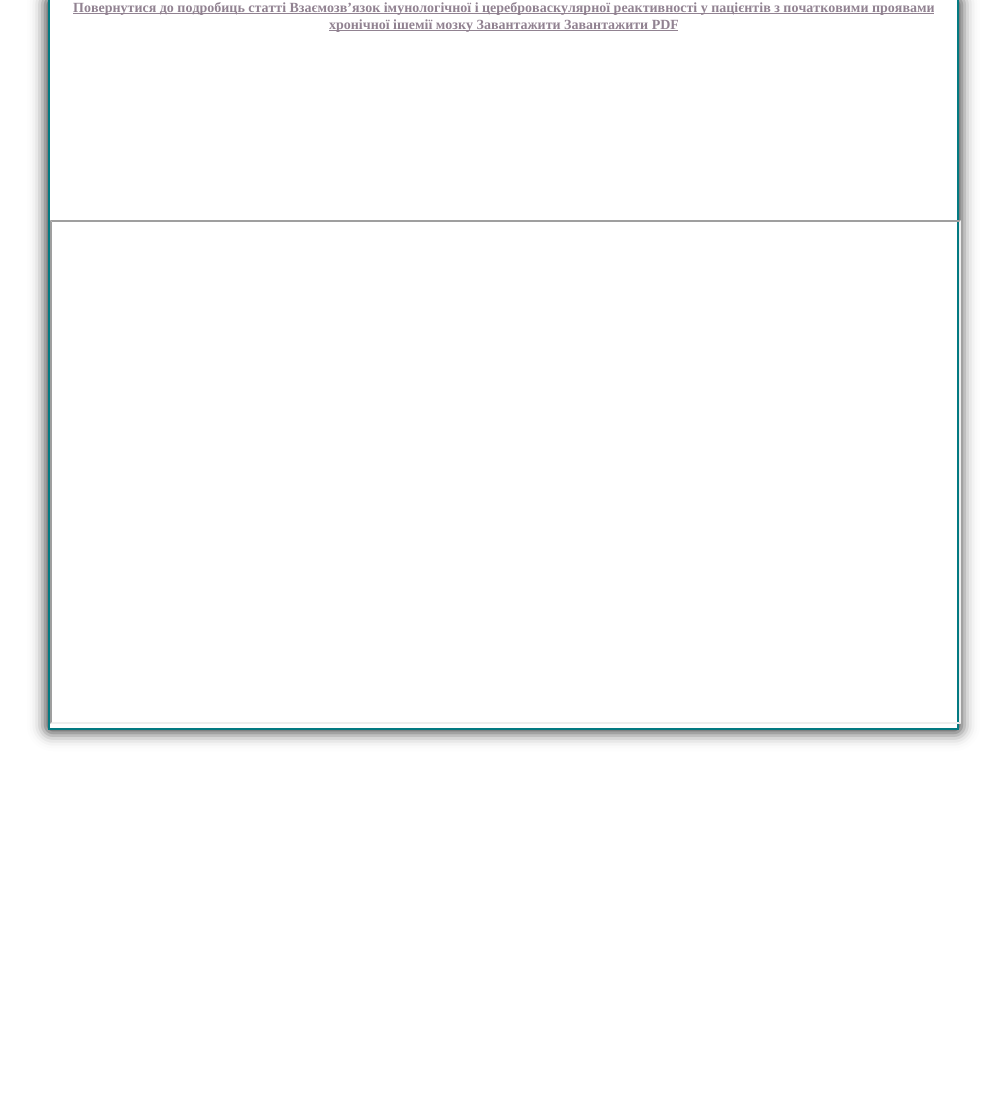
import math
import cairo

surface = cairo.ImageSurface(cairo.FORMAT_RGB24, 1007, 1102)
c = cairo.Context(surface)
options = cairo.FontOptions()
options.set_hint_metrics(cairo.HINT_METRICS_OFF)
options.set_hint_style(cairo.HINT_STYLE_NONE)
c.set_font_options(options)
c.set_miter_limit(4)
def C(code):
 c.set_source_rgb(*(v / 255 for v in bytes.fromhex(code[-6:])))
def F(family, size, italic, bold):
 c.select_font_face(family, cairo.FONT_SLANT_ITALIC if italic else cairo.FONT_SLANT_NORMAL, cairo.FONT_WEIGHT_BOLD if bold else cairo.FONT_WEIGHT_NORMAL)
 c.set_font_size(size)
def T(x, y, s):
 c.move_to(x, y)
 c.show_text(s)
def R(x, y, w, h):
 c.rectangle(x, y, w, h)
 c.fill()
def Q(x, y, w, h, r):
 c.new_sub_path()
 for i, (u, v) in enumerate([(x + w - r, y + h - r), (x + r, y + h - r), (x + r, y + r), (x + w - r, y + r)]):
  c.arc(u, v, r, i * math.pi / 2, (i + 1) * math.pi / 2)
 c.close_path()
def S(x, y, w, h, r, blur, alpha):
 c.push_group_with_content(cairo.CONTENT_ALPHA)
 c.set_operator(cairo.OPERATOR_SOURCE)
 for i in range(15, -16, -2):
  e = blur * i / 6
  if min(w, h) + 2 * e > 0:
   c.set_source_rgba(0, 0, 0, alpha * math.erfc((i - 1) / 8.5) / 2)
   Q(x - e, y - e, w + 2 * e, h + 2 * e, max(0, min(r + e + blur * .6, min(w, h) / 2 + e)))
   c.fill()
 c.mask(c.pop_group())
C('ffffff')
c.paint()
c.save()
c.set_fill_rule(cairo.FILL_RULE_EVEN_ODD)
c.new_path()
c.move_to(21,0)
c.line_to(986,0)
c.line_to(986,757)
c.line_to(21,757)
c.close_path()
c.move_to(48,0)
c.line_to(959,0)
c.line_to(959,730)
c.line_to(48,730)
c.close_path()
c.clip()
C('000000')
S(48,0,911,730,0,8.5,1)
c.restore()
C('037a82')
R(957,0,2,730)
R(48,728,911,2)
R(48,0,2,730)
C('918291')
R(73,13,861,1)
F('Liberation Serif',14,0,1)
T(73,12,'Повернутися до подробиць статті Взаємозв’язок імунологічної і цереброваскулярної реактивності у пацієнтів з початковими проявами')
R(329,30,349,1)
T(329,29,'хронічної ішемії мозку Завантажити Завантажити PDF')
C('9f9f9f')
c.new_path()
c.move_to(50,220)
c.line_to(961,220)
c.line_to(959,222)
c.line_to(52,222)
c.close_path()
c.fill()
C('eeeeee')
c.new_path()
c.move_to(961,220)
c.line_to(961,724)
c.line_to(959,722)
c.line_to(959,222)
c.close_path()
c.fill()
c.new_path()
c.move_to(961,724)
c.line_to(50,724)
c.line_to(52,722)
c.line_to(959,722)
c.close_path()
c.fill()
C('9f9f9f')
c.new_path()
c.move_to(50,724)
c.line_to(50,220)
c.line_to(52,222)
c.line_to(52,722)
c.close_path()
c.fill()
surface.write_to_png('o.png')
